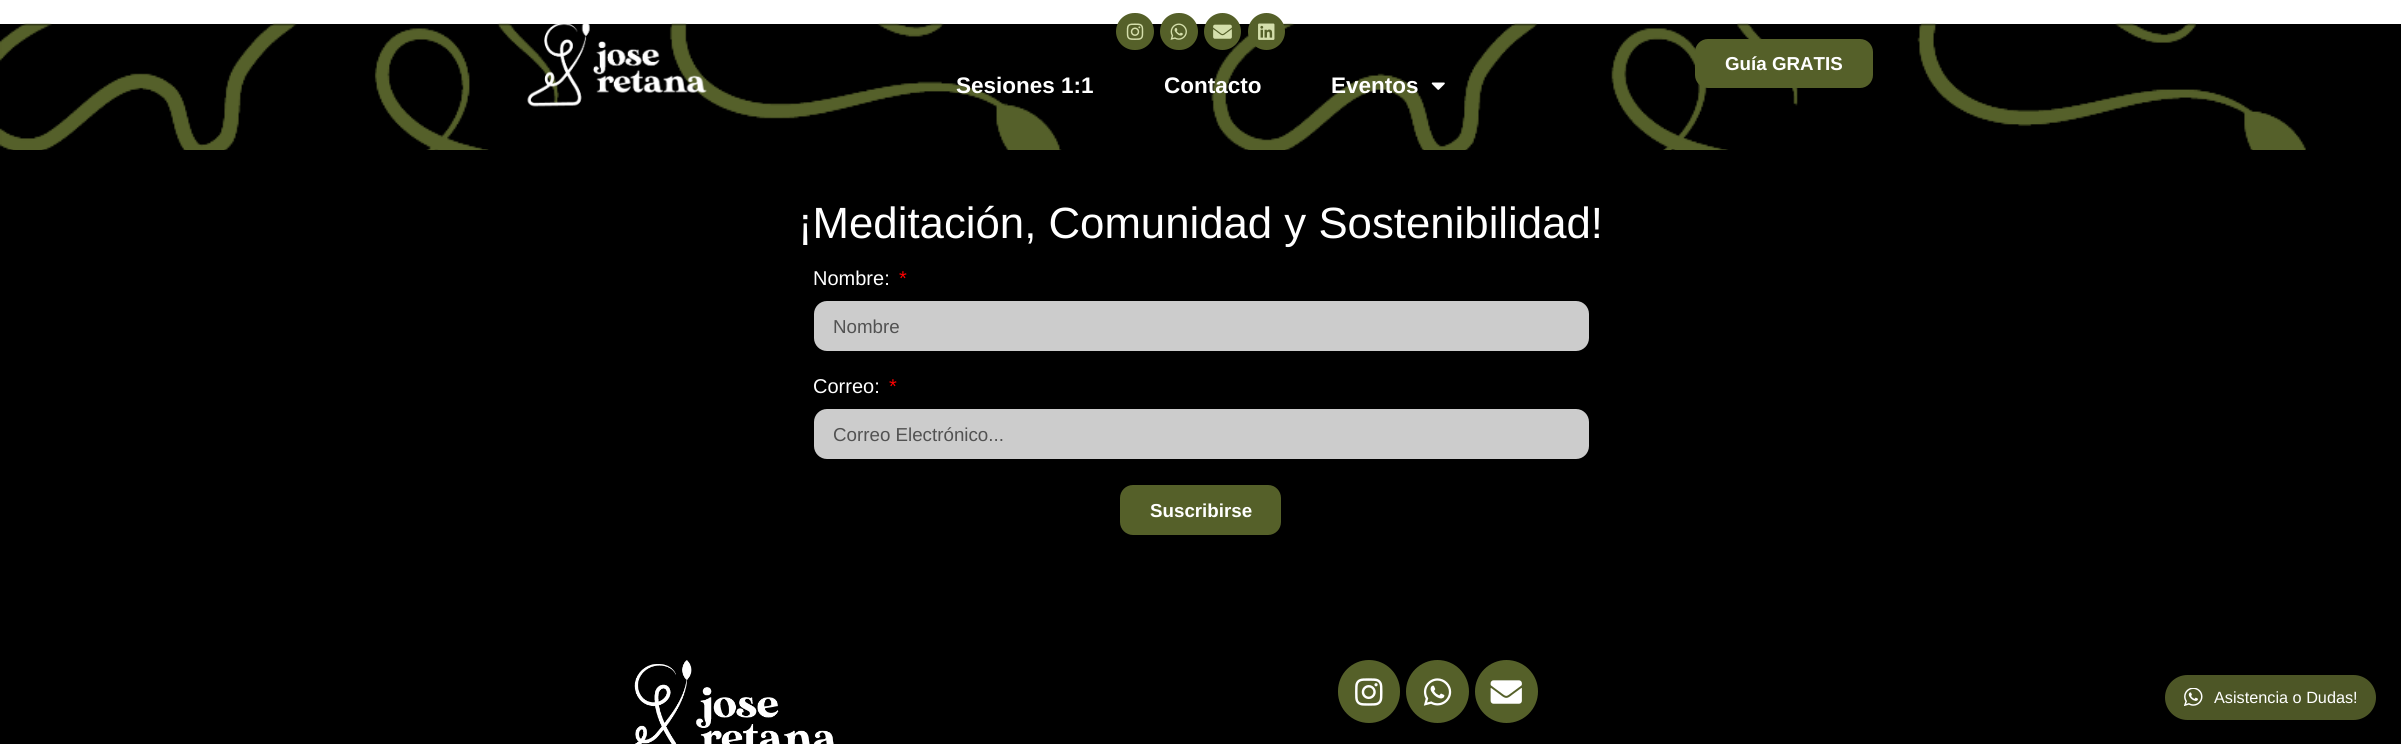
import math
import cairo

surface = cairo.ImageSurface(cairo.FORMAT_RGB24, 2401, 744)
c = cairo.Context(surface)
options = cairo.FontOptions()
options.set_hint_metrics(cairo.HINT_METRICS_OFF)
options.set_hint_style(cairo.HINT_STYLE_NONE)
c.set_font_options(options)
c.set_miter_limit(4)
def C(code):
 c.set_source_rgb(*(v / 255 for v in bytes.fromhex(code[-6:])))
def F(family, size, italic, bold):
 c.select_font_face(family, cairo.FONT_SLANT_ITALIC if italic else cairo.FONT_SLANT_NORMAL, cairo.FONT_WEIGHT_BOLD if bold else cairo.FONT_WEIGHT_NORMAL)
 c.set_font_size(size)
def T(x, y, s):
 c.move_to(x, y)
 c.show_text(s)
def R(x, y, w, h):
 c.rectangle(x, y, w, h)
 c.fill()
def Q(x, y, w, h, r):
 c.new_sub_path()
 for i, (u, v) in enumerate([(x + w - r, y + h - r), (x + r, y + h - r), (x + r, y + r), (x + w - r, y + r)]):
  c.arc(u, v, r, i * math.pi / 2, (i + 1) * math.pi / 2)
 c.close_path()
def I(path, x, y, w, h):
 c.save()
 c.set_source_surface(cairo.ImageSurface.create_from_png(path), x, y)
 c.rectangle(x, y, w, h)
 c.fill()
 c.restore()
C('ffffff')
c.paint()
C('000000')
R(0,24,2401,720)
I('7.png',0,23,2306,127)
I('1.png',527,24,180,83)
C('556029')
Q(1695,39,178,49,13)
c.fill()
F('Liberation Sans',18.75,0,1)
C('ffffff')
T(1725,70,'Guía GRATIS')
C('556029')
Q(1116,13,38,37,18.5)
c.fill()
I('2.png',1126,23,18,17)
Q(1160,13,38,37,18.5)
c.fill()
I('3.png',1170,23,17,17)
c.arc(1222.5,31.5,18.5,0,2 * math.pi)
c.fill()
I('4.png',1213,24,19,15)
c.arc(1266.5,31.5,18.5,0,2 * math.pi)
c.fill()
I('5.png',1258,23,17,17)
F('Liberation Sans',22.5,0,1)
C('ffffff')
T(956,93,'Sesiones 1:1')
T(1164,93,'Contacto')
T(1331,93,'Eventos')
I('6.png',1431,82,14,8)
F('Liberation Sans',43.75,0,0)
T(798,238,'¡Meditación, Comunidad y Sostenibilidad!')
F('Liberation Sans',20,0,0)
T(813,285,'Nombre:')
C('ff0000')
T(899,285,'*')
C('cccccc')
Q(814,301,775,50,13)
c.fill()
F('Liberation Sans',18.75,0,0)
C('525252')
T(833,333,'Nombre')
F('Liberation Sans',20,0,0)
C('ffffff')
T(813,393,'Correo:')
C('ff0000')
T(889,393,'*')
C('cccccc')
Q(814,409,775,50,13)
c.fill()
F('Liberation Sans',18.75,0,0)
C('525252')
T(833,441,'Correo Electrónico...')
C('556029')
Q(1120,485,161,50,13)
c.fill()
F('Liberation Sans',18.75,0,1)
C('ffffff')
T(1150,517,'Suscribirse')
I('8.png',634,660,200,84)
C('556029')
Q(1338,660,62,63,31)
c.fill()
I('9.png',1355,678,28,28)
c.arc(1437.5,691.5,31.5,0,2 * math.pi)
c.fill()
I('10.png',1423,678,29,28)
c.arc(1506.5,691.5,31.5,0,2 * math.pi)
c.fill()
I('11.png',1490,680,32,24)
C('4d5626')
Q(2165,675,211,45,22.5)
c.fill()
I('12.png',2184,688,19,18)
F('Liberation Sans',16.25,0,0)
C('ffffff')
T(2214,703,'Asistencia o Dudas!')
surface.write_to_png('o.png')
